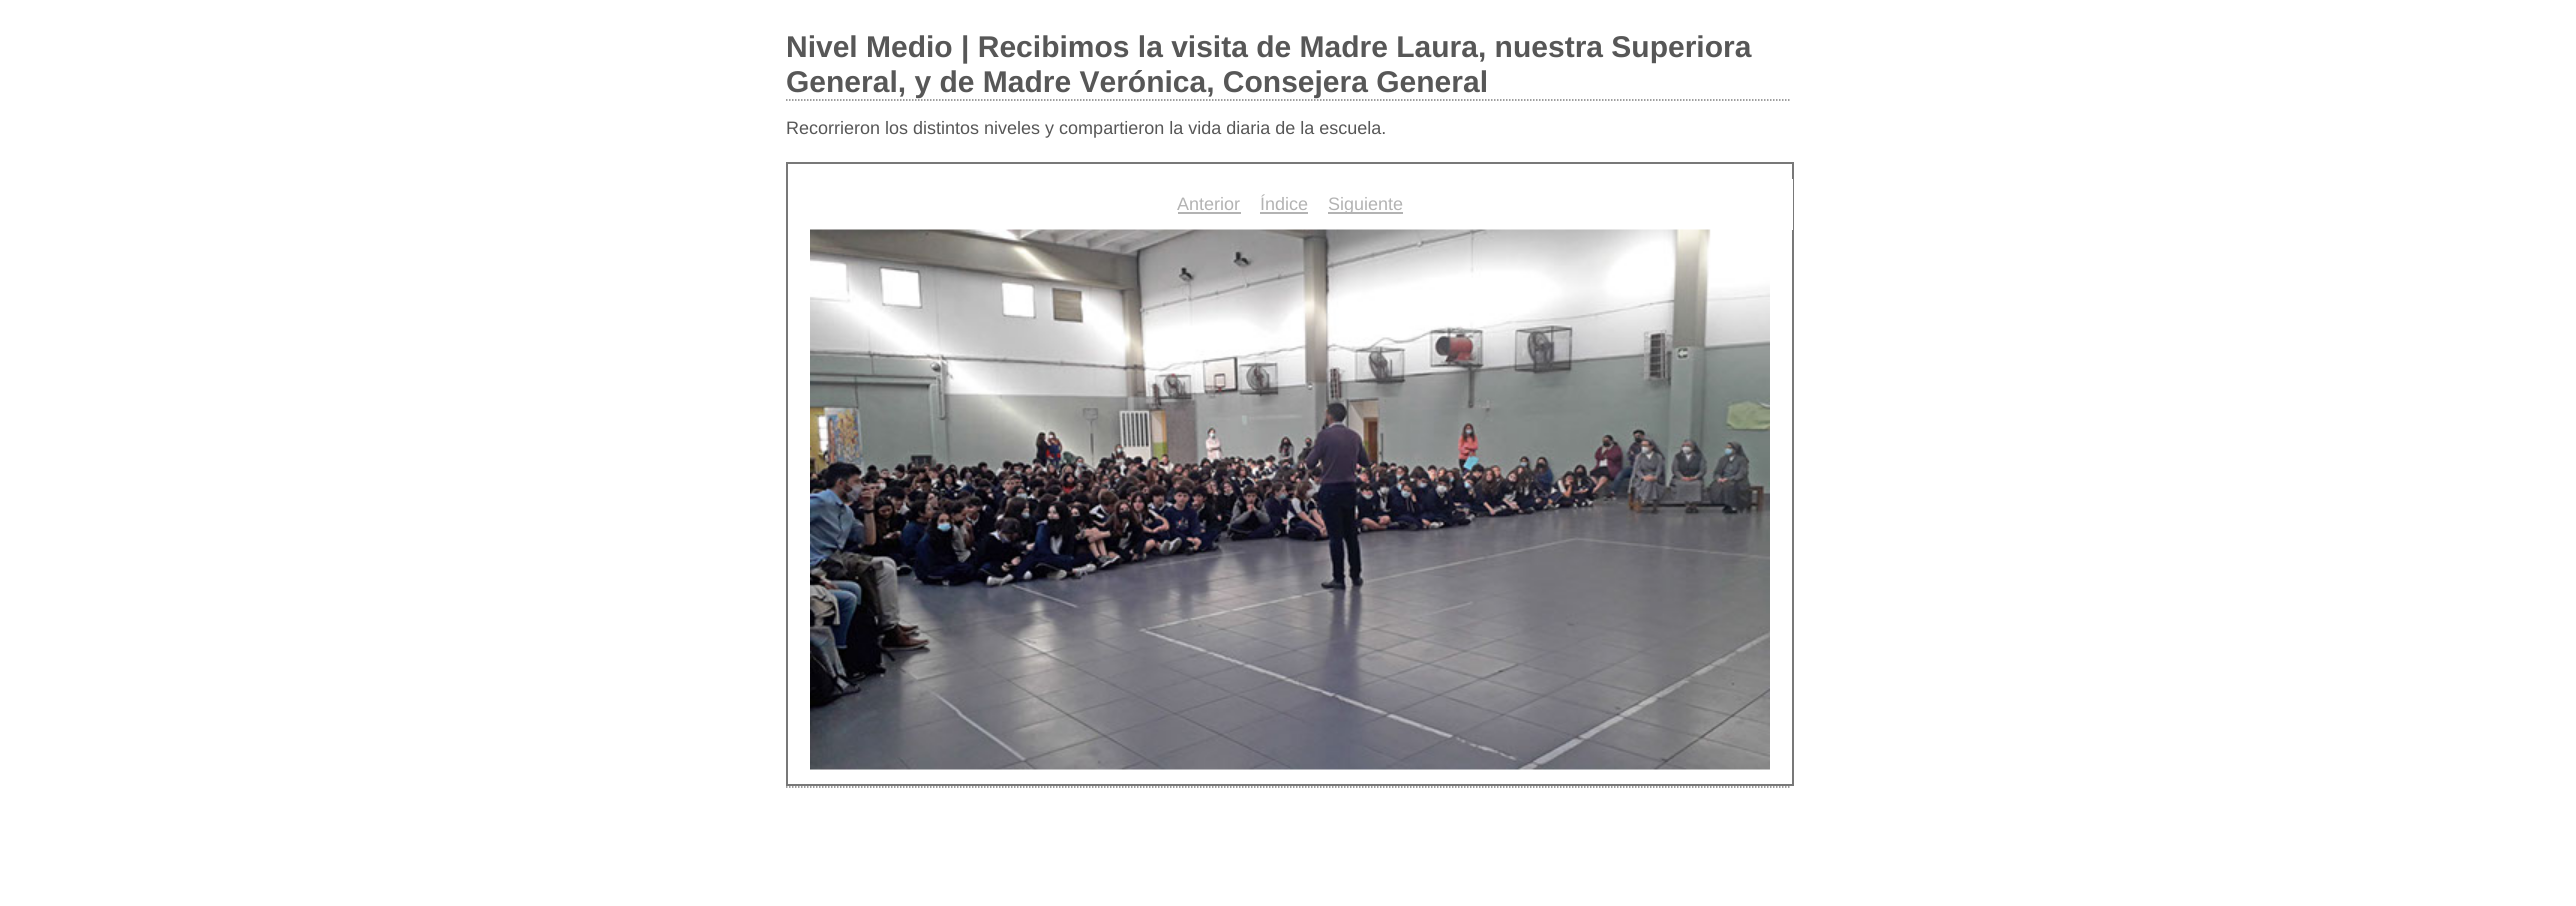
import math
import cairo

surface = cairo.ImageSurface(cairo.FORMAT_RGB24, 2576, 906)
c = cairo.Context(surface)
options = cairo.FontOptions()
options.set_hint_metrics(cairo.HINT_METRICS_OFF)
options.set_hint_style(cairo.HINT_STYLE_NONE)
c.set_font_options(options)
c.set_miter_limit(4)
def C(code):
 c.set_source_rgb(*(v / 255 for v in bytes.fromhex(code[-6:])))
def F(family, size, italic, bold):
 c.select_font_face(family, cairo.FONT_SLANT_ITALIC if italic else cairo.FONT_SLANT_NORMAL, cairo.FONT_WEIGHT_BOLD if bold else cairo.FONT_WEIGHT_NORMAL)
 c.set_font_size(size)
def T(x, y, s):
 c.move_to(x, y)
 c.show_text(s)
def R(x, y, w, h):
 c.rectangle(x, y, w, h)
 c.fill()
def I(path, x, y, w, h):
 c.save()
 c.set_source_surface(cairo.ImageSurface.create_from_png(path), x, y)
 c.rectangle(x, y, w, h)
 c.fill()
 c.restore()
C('ffffff')
c.paint()
c.new_path()
c.move_to(786,100)
c.line_to(1791,100)
C('7f7f7f')
c.set_line_width(1.5)
c.set_dash([1.5,1.5])
c.stroke()
F('Liberation Sans',30,0,1)
C('575757')
T(786,57,'Nivel Medio | Recibimos la visita de Madre Laura, nuestra Superiora')
T(786,92,'General, y de Madre Verónica, Consejera General')
F('Liberation Sans',18,0,0)
T(786,134,'Recorrieron los distintos niveles y compartieron la vida diaria de la escuela.')
c.rectangle(787,163,1006,622)
C('787878')
c.set_line_width(2)
c.set_dash([])
c.stroke()
C('ffffff')
R(1792,179,1,51)
C('b3b3b3')
T(1177,210,'Anterior')
R(1178,212,63,2)
T(1260,210,'Índice')
R(1260,212,48,2)
R(1328,212,75,2)
T(1328,210,'Siguiente')
I('1.png',810,229,960,541)
c.new_path()
c.move_to(786,787)
c.line_to(1791,787)
C('7f7f7f')
c.set_line_width(1.5)
c.set_dash([1.5,1.5])
c.stroke()
surface.write_to_png('o.png')
